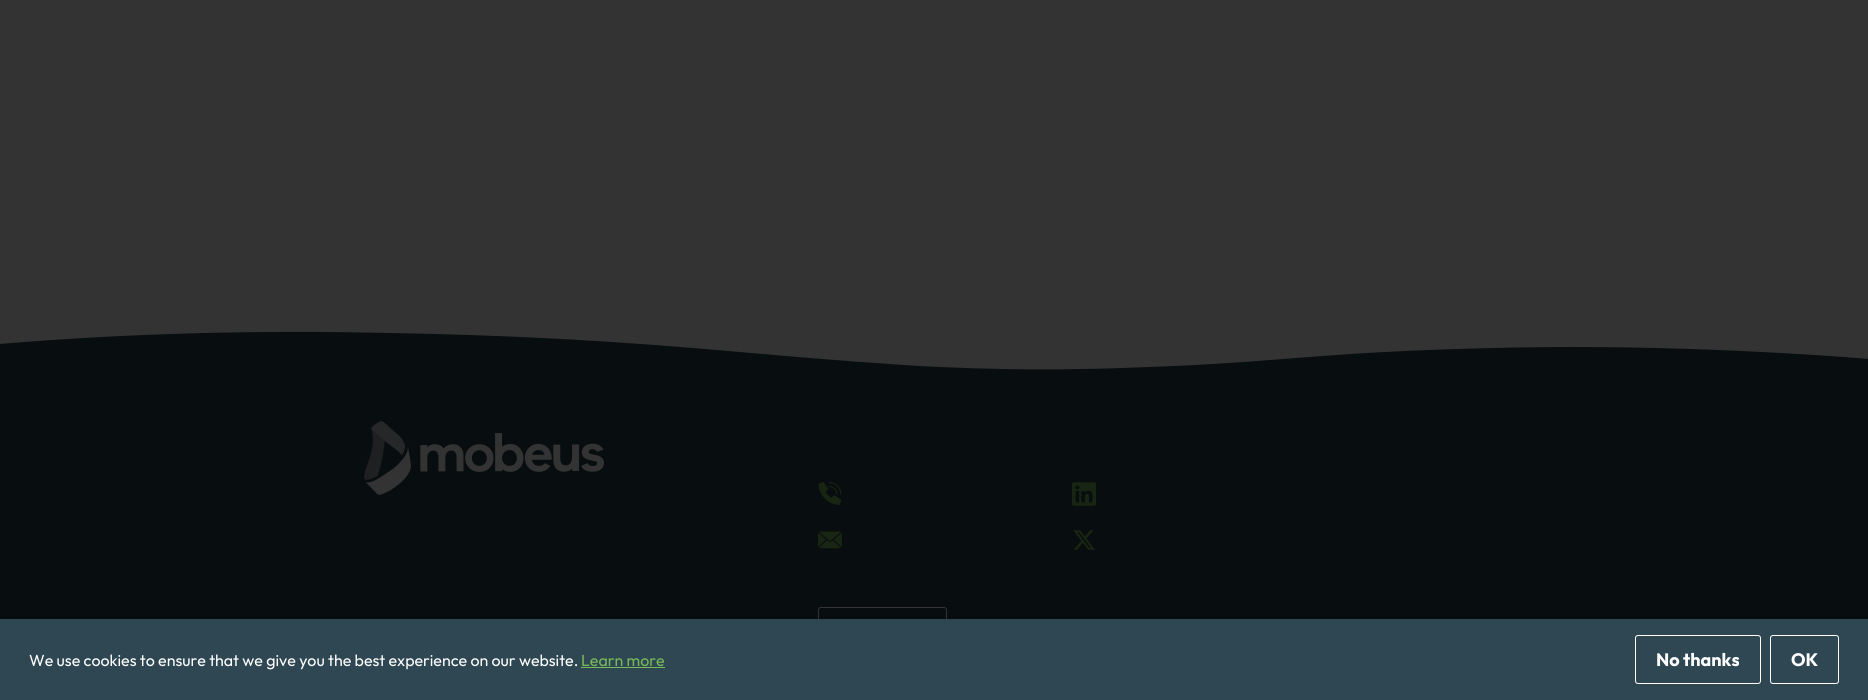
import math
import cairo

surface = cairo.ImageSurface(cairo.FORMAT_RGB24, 1868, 700)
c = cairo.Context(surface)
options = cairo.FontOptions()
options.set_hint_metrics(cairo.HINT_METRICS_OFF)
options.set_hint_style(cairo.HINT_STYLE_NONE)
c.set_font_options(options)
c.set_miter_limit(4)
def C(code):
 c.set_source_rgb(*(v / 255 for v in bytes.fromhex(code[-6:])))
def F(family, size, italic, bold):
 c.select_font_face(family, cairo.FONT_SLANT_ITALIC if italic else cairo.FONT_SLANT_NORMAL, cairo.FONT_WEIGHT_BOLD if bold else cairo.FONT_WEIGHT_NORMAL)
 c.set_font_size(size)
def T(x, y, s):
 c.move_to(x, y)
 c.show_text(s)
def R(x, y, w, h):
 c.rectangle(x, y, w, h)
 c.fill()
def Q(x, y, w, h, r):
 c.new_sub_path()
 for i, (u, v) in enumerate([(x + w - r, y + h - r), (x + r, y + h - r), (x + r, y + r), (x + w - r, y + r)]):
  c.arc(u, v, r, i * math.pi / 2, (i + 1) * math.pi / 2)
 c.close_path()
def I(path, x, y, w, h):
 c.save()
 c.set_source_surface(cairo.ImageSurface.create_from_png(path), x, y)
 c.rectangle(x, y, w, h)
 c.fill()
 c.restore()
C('ffffff')
c.paint()
C('294049')
R(0,331,1868,288)
C('ffffff')
c.new_path()
c.move_to(391,333)
c.curve_to(502,335,609,340,751,353)
c.curve_to(806,358,895,365,939,367)
c.curve_to(983,369,1037,370,1080,369)
c.curve_to(1099,369,1122,368,1174,366)
c.curve_to(1224,364,1282,359,1322,356)
c.curve_to(1399,350,1499,347,1573,347)
c.curve_to(1734,347,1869,359,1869,359)
c.line_to(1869,330)
c.line_to(-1,330)
c.line_to(-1,344)
c.curve_to(130,333,260,330,391,333)
c.close_path()
c.fill()
I('1.png',364,421,240,74)
I('2.png',818,482,24,23)
I('3.png',818,531,24,18)
Q(818.5,607.5,128,42,2.5)
c.set_line_width(1)
c.stroke()
I('4.png',1072,482,24,24)
I('5.png',1073,530,22,20)
C('2e4752')
R(0,619,1868,81)
c.set_source_rgba(0,0,0,0.8)
R(0,0,1868,619)
F('Outfit',16,0,0)
C('ffffff')
T(29,666,'We use cookies to ensure that we give you the best experience on our website.')
C('77ba59')
T(581,666,'Learn more')
R(581,667,84,1)
Q(1635.5,635.5,125,48,2.5)
C('ffffff')
c.stroke()
F('Outfit',18,0,1)
T(1656,666,'No thanks')
Q(1770.5,635.5,68,48,2.5)
c.stroke()
T(1791,666,'OK')
surface.write_to_png('o.png')
